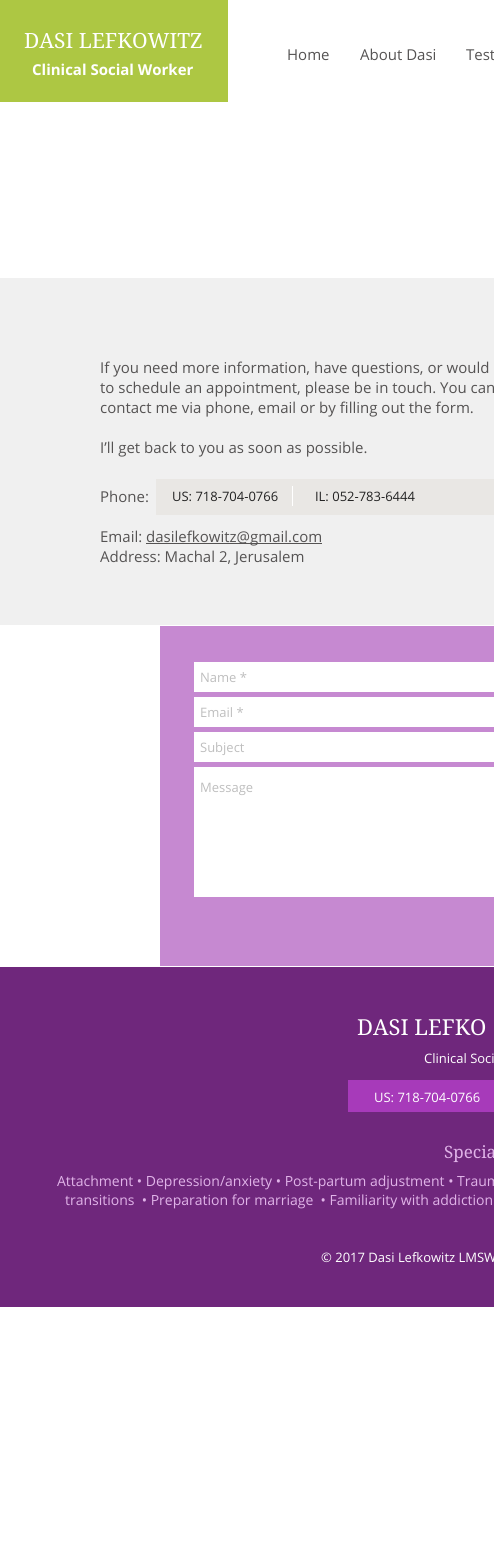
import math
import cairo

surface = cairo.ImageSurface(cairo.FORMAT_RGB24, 494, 1545)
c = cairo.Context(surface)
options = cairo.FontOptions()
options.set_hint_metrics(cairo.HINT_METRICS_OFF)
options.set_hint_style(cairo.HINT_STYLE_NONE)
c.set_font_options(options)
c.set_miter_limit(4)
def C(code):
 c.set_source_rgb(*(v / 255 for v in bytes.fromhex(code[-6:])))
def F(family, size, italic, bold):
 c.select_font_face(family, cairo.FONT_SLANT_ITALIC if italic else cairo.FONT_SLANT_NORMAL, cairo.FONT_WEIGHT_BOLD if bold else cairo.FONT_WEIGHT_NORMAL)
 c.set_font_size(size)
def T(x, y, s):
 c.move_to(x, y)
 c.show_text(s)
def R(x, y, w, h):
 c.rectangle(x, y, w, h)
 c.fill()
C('ffffff')
c.paint()
C('adc743')
R(0,0,228,102)
F('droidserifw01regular',21,0,0)
C('ffffff')
T(24,48,'DASI LEFKOWITZ')
F('Open Sans',15,0,1)
T(32,75,'Clinical Social Worker')
F('Open Sans',15,0,0)
C('555353')
T(287,60,'Home')
T(360,60,'About Dasi')
T(466,60,'Test')
C('f0f0f0')
R(0,278,494,347)
C('555353')
T(100,373,'If you need more information, have questions, or would')
T(100,393,'to schedule an appointment, please be in touch. You can')
T(100,413,'contact me via phone, email or by filling out the form.')
T(100,453,'I’ll get back to you as soon as possible.')
T(100,502,'Phone:')
T(100,542,'Email:')
R(146,543,176,1)
T(146,542,'dasilefkowitz@gmail.com')
T(100,562,'Address: Machal 2, Jerusalem')
C('e9e7e4')
R(156,479,338,36)
F('Open Sans',13,0,0)
C('222222')
T(172,501,'US: 718-704-0766')
C('ffffff')
R(292,486,1,20)
C('222222')
T(315,501,'IL: 052-783-6444')
C('c689d1')
R(160,626,334,340)
C('ffffff')
R(194,662,300,30)
C('bebebe')
T(200,682,'Name *')
C('ffffff')
R(194,697,300,30)
C('bebebe')
T(200,717,'Email *')
C('ffffff')
R(194,732,300,30)
C('bebebe')
T(200,752,'Subject')
C('ffffff')
R(194,767,300,130)
C('bebebe')
T(200,792,'Message')
C('6f277c')
R(0,967,494,340)
F('droidserifw01regular',22,0,0)
C('ffffff')
T(357,1035,'DASI LEFKO')
F('Open Sans',13,0,0)
T(424,1063,'Clinical Soci')
C('a73aba')
R(348,1080,146,32)
C('ffffff')
T(374,1102,'US: 718-704-0766')
F('droidserifw01regular',17,0,0)
C('e0b3e8')
T(444,1158,'Specia')
F('Open Sans',14,0,0)
T(57,1186,'Attachment • Depression/anxiety • Post-partum adjustment • Traum')
T(65,1205,'transitions  • Preparation for marriage  • Familiarity with addiction')
F('Open Sans',13,0,0)
C('ffffff')
T(321,1262,'© 2017 Dasi Lefkowitz LMSW')
surface.write_to_png('o.png')
